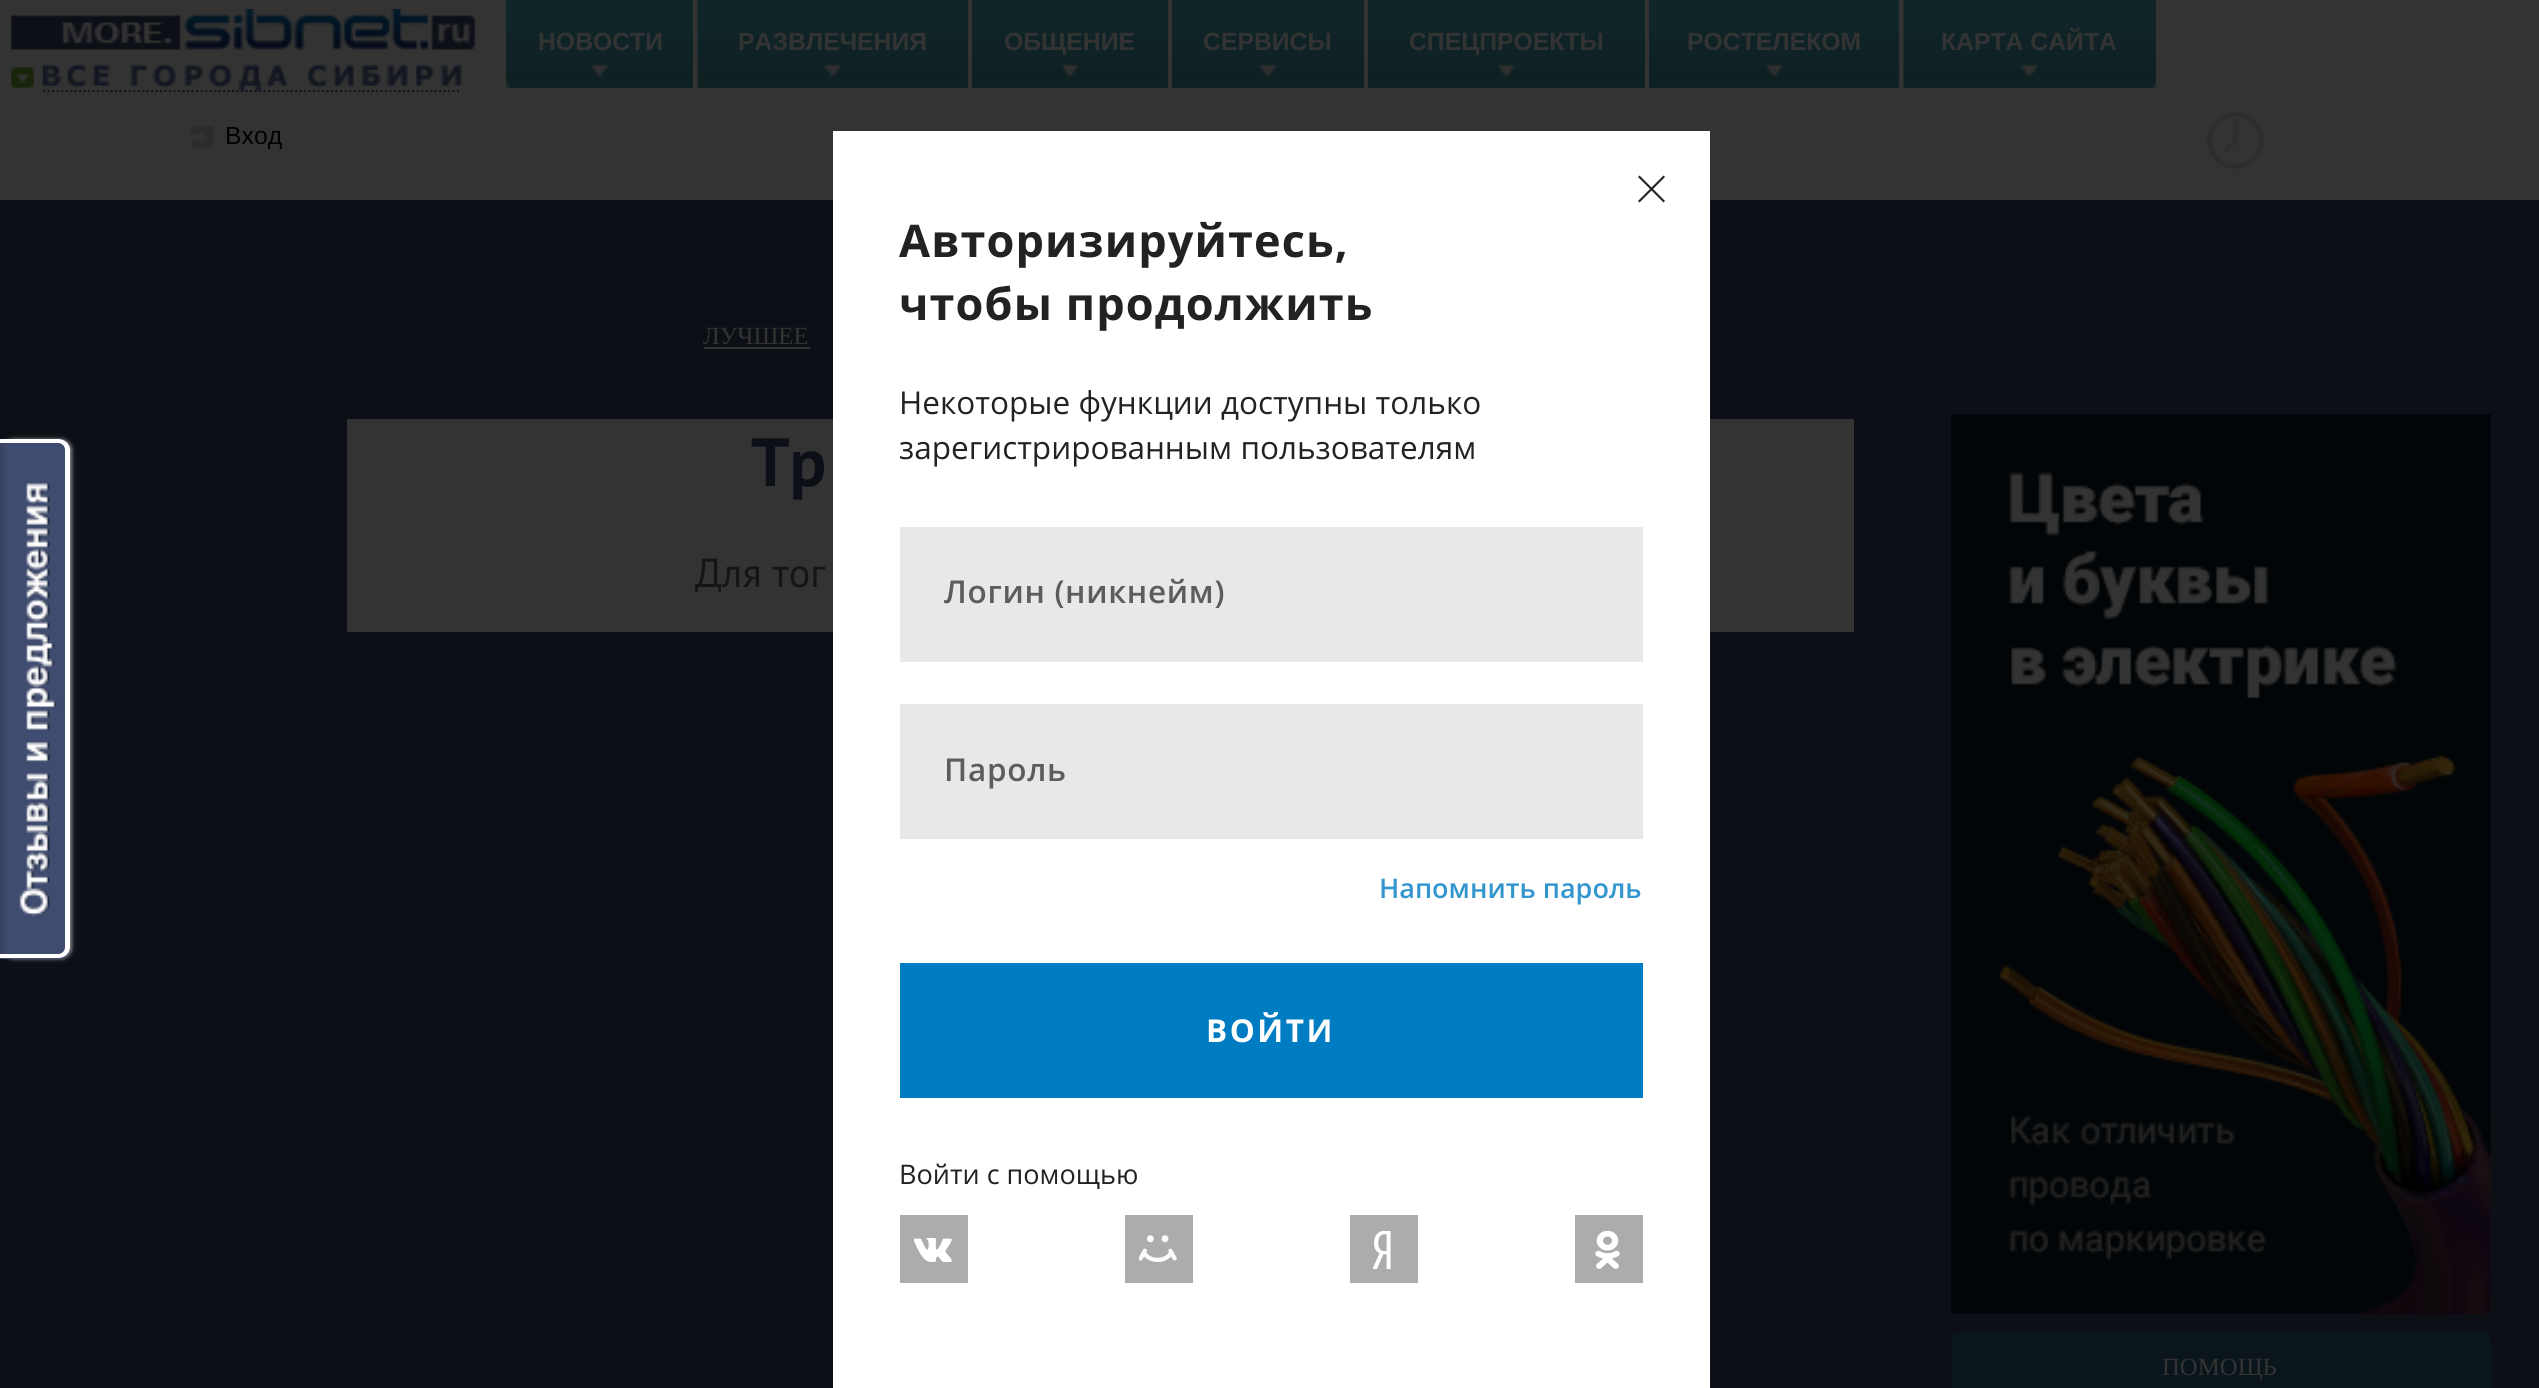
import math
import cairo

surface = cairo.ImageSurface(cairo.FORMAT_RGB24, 2539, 1388)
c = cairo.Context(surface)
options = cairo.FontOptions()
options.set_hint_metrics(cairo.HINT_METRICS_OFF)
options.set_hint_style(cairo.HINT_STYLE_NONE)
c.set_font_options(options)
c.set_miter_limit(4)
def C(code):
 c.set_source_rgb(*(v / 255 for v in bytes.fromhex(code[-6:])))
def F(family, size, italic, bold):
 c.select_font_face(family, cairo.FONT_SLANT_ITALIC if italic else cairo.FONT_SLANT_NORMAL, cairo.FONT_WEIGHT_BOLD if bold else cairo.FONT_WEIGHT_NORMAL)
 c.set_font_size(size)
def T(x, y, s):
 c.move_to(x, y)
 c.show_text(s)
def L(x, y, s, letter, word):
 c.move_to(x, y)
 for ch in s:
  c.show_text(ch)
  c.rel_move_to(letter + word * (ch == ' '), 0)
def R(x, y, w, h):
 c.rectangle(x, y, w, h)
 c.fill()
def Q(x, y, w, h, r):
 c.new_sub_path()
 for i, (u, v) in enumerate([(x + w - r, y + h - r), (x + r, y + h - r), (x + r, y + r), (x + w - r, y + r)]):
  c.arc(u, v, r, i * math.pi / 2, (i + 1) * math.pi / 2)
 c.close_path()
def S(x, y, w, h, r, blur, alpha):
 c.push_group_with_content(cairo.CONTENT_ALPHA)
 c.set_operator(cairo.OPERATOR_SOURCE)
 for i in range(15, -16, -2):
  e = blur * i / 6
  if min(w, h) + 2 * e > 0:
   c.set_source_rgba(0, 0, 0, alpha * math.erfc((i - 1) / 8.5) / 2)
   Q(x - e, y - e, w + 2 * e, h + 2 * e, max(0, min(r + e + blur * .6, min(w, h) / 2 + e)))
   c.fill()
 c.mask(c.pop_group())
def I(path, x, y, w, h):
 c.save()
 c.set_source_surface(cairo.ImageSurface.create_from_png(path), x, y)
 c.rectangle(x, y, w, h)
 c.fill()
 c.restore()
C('0d0f16')
c.paint()
C('333333')
R(0,0,2539,200)
I('1.png',11,15,170,35)
I('2.png',184,9,292,41)
I('3.png',11,67,23,22)
I('4.png',42,64,420,27)
c.new_path()
c.move_to(43,91)
c.line_to(461,91)
C('12161f')
c.set_line_width(2.2)
c.set_dash([2.25,2.25])
c.stroke()
C('102528')
R(506,0,187,88)
I('5.png',506,33,187,55)
I('6.png',590,64,20,13)
F('Liberation Sans',24.75,0,1)
C('333333')
T(538,50,'НОВОСТИ')
C('102528')
R(698,0,270,88)
I('7.png',697,0,271,88)
I('8.png',823,64,20,13)
C('333333')
T(738,50,'РАЗВЛЕЧЕНИЯ')
C('102528')
R(972,0,196,88)
I('9.png',972,33,196,55)
I('10.png',1060,64,20,13)
C('333333')
T(1004,50,'ОБЩЕНИЕ')
C('102528')
R(1172,0,192,88)
I('11.png',1172,33,192,55)
I('12.png',1258,64,20,13)
C('333333')
T(1203,50,'СЕРВИСЫ')
C('102528')
R(1368,0,277,88)
I('13.png',1368,33,277,55)
I('14.png',1497,64,19,13)
C('333333')
T(1409,50,'СПЕЦПРОЕКТЫ')
C('102528')
R(1649,0,250,88)
I('15.png',1649,33,250,55)
I('16.png',1764,64,20,13)
C('333333')
T(1687,50,'РОСТЕЛЕКОМ')
C('102528')
R(1904,0,252,88)
I('17.png',1903,0,253,88)
I('18.png',2020,64,19,13)
C('333333')
T(1941,50,'КАРТА САЙТА')
I('19.png',191,126,23,23)
F('Liberation Sans',24.75,0,0)
C('000000')
T(225,144,'Вход')
I('20.png',2207,112,57,57)
C('333333')
R(347,419,1507,213)
C('ffffff')
R(833,131,877,1257)
C('222222')
c.new_path()
c.move_to(1638,177)
c.line_to(1639.5,175.5)
c.line_to(1665,201)
c.line_to(1663.5,202.5)
c.close_path()
c.fill()
c.new_path()
c.move_to(1638,201)
c.line_to(1663.5,175.5)
c.line_to(1665,177)
c.line_to(1639.5,202.5)
c.close_path()
c.fill()
F('Open Sans',45,0,1)
L(899,257,'Авторизируйтесь,',1.1,0)
L(899,320,'чтобы продолжить',1.1,0)
F('Open Sans',31.5,0,0)
T(899,414,'Некоторые функции доступны только')
T(899,459,'зарегистрированным пользователям')
C('e8e8e8')
R(900,527,743,135)
F('Open Sans SemiBold',31.5,0,0)
C('5d5d5d')
L(944,603,'Логин (никнейм)',.7,0)
C('e8e8e8')
R(900,704,743,135)
C('5d5d5d')
L(944,781,'Пароль',.7,0)
F('Open Sans SemiBold',27,0,0)
C('3396cf')
T(1379,898,'Напомнить пароль')
C('007cc3')
R(900,963,743,135)
F('Open Sans',31.5,0,1)
C('ffffff')
L(1206,1042,'ВОЙТИ',2.5,0)
F('Open Sans',27,0,0)
C('222222')
T(899,1184,'Войти с помощью')
C('acacac')
R(900,1215,68,68)
I('21.png',914,1238,38,24)
R(1125,1215,68,68)
I('22.png',1139,1235,38,27)
R(1350,1215,68,68)
I('23.png',1373,1231,18,38)
R(1575,1215,68,68)
I('24.png',1595,1231,25,38)
C('888888')
S(2,439,70,520,11,2,1)
C('404c6f')
c.new_path()
c.move_to(0,439)
c.line_to(59,439)
c.curve_to(65,439,70,444,70,450)
c.line_to(70,948)
c.curve_to(70,954,65,959,59,959)
c.line_to(0,959)
c.close_path()
c.fill()
I('25.png',0,443,7,516)
C('ffffff')
c.set_fill_rule(cairo.FILL_RULE_EVEN_ODD)
c.new_path()
c.move_to(0,439)
c.line_to(58,439)
c.curve_to(65,439,70,444,70,450)
c.line_to(70,947)
c.curve_to(70,953,65,958,58,958)
c.line_to(0,958)
c.close_path()
c.move_to(0,443)
c.line_to(58,443)
c.curve_to(62,443,65,446,65,450)
c.line_to(65,947)
c.curve_to(65,951,62,954,58,954)
c.line_to(0,954)
c.close_path()
c.fill()
I('26.png',19,483,38,434)
F('Liberation Serif',24.75,0,0)
C('333333')
T(703,344,'ЛУЧШЕЕ')
R(704,347,106,2)
F('PT Sans',68,0,1)
C('0d0f16')
T(751,486,'Тр')
F('PT Sans',40.5,0,0)
C('151515')
T(695,587,'Для тог')
I('27.png',1950,414,541,900)
C('0b151c')
Q(1951,1332,540,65,9)
c.fill()
F('Liberation Serif',24.75,0,0)
C('333333')
T(2162,1375,'ПОМОЩЬ')
surface.write_to_png('o.png')
